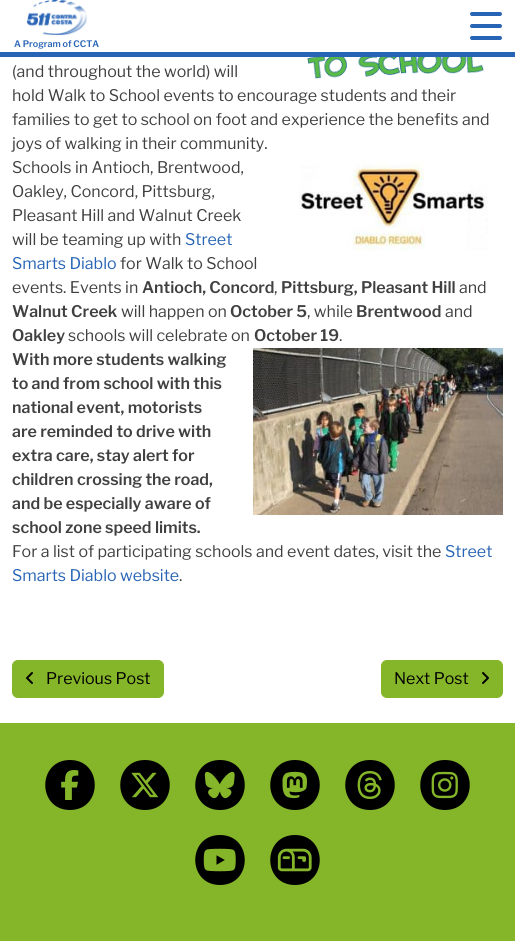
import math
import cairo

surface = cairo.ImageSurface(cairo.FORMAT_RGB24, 515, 941)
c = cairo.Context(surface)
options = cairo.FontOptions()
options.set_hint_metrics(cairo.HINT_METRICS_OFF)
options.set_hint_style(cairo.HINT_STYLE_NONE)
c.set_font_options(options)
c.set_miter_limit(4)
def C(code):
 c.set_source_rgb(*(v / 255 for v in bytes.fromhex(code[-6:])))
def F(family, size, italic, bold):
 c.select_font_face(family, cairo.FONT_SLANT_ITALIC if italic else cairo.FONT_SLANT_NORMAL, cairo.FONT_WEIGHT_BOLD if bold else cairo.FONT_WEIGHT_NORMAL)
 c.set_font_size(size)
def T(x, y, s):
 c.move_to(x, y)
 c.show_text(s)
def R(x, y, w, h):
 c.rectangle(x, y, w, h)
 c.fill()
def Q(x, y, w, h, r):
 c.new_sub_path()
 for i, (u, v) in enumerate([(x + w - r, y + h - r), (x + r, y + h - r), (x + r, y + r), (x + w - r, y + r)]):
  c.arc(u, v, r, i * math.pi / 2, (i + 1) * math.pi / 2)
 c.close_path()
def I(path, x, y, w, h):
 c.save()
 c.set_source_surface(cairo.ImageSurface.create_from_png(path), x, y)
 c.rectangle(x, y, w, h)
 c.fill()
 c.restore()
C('ffffff')
c.paint()
C('2764b5')
R(0,52,515,5)
Q(470,12,32,4,2)
c.fill()
Q(470,24,32,4,2)
c.fill()
Q(470,36,32,4,2)
c.fill()
I('1.png',27,0,60,35)
F('Libre Franklin SemiBold',9,0,0)
T(14,47,'A Program of CCTA')
F('Libre Franklin',16,0,0)
C('404040')
T(12,77,'(and throughout the world) will')
I('2.png',307,57,177,22)
T(12,101,'hold Walk to School events to encourage students and their')
T(12,125,'families to get to school on foot and experience the benefits and')
T(12,149,'joys of walking in their community.')
T(12,173,'Schools in Antioch, Brentwood,')
I('3.png',299,162,189,89)
T(12,197,'Oakley, Concord, Pittsburg,')
T(12,221,'Pleasant Hill and Walnut Creek')
T(12,245,'will be teaming up with')
C('2764b5')
T(185,245,'Street')
T(12,269,'Smarts Diablo')
C('404040')
T(120,269,'for Walk to School')
T(12,293,'events. Events in')
F('Libre Franklin SemiBold',16,0,0)
T(142,293,'Antioch, Concord')
F('Libre Franklin',16,0,0)
T(274,293,',')
F('Libre Franklin SemiBold',16,0,0)
T(281,293,'Pittsburg, Pleasant Hill')
F('Libre Franklin',16,0,0)
T(459,293,'and')
F('Libre Franklin SemiBold',16,0,0)
T(12,317,'Walnut Creek')
F('Libre Franklin',16,0,0)
T(121,317,'will happen on')
F('Libre Franklin SemiBold',16,0,0)
T(230,317,'October 5')
F('Libre Franklin',16,0,0)
T(307,317,', while')
F('Libre Franklin SemiBold',16,0,0)
T(356,317,'Brentwood')
F('Libre Franklin',16,0,0)
T(445,317,'and')
F('Libre Franklin SemiBold',16,0,0)
T(12,341,'Oakley')
F('Libre Franklin',16,0,0)
T(68,341,'schools will celebrate on')
F('Libre Franklin SemiBold',16,0,0)
T(254,341,'October 19')
F('Libre Franklin',16,0,0)
T(339,341,'.')
F('Libre Franklin SemiBold',16,0,0)
T(12,365,'With more students walking')
I('4.png',253,348,250,167)
T(12,389,'to and from school with this')
T(12,413,'national event, motorists')
T(12,437,'are reminded to drive with')
T(12,461,'extra care, stay alert for')
T(12,485,'children crossing the road,')
T(12,509,'and be especially aware of')
T(12,533,'school zone speed limits.')
F('Libre Franklin',16,0,0)
T(12,557,'For a list of participating schools and event dates, visit the')
C('2764b5')
T(445,557,'Street')
T(12,581,'Smarts Diablo website')
C('404040')
T(179,581,'.')
C('85b529')
Q(12.5,660.5,151,37,5.5)
c.fill_preserve()
c.set_line_width(1)
c.stroke()
I('5.png',26,672,7,12)
C('000000')
T(46,684,'Previous Post')
C('85b529')
Q(381.5,660.5,121,37,5.5)
c.fill_preserve()
c.stroke()
C('000000')
T(394,684,'Next Post')
I('6.png',482,672,7,12)
C('85b529')
R(0,723,515,218)
C('000000')
c.new_path()
c.move_to(70,810)
c.curve_to(103,810,103,760,70,760)
c.curve_to(37,760,37,810,70,810)
c.close_path()
c.fill()
I('7.png',61,770,18,30)
c.new_path()
c.move_to(145,810)
c.curve_to(178,810,178,760,145,760)
c.curve_to(112,760,112,810,145,810)
c.close_path()
c.fill()
I('8.png',131,772,28,26)
c.new_path()
c.move_to(220,810)
c.curve_to(253,810,253,760,220,760)
c.curve_to(187,760,187,810,220,810)
c.close_path()
c.fill()
I('9.png',204,771,31,28)
c.new_path()
c.move_to(295,810)
c.curve_to(328,810,328,760,295,760)
c.curve_to(262,760,262,810,295,810)
c.close_path()
c.fill()
I('10.png',282,771,25,28)
c.new_path()
c.move_to(370,810)
c.curve_to(403,810,403,760,370,760)
c.curve_to(337,760,337,810,370,810)
c.close_path()
c.fill()
I('11.png',357,770,25,30)
c.new_path()
c.move_to(445,810)
c.curve_to(478,810,478,760,445,760)
c.curve_to(412,760,412,810,445,810)
c.close_path()
c.fill()
I('12.png',431,771,27,28)
c.new_path()
c.move_to(220,885)
c.curve_to(253,885,253,835,220,835)
c.curve_to(187,835,187,885,220,885)
c.close_path()
c.fill()
I('13.png',203,848,33,24)
c.new_path()
c.move_to(295,885)
c.curve_to(328,885,328,835,295,835)
c.curve_to(262,835,262,885,295,885)
c.close_path()
c.fill()
I('14.png',277,848,35,24)
surface.write_to_png('o.png')
